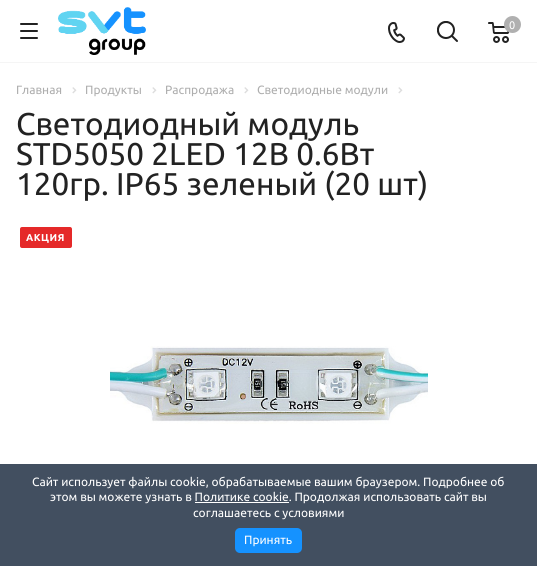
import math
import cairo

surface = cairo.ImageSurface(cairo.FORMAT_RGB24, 537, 566)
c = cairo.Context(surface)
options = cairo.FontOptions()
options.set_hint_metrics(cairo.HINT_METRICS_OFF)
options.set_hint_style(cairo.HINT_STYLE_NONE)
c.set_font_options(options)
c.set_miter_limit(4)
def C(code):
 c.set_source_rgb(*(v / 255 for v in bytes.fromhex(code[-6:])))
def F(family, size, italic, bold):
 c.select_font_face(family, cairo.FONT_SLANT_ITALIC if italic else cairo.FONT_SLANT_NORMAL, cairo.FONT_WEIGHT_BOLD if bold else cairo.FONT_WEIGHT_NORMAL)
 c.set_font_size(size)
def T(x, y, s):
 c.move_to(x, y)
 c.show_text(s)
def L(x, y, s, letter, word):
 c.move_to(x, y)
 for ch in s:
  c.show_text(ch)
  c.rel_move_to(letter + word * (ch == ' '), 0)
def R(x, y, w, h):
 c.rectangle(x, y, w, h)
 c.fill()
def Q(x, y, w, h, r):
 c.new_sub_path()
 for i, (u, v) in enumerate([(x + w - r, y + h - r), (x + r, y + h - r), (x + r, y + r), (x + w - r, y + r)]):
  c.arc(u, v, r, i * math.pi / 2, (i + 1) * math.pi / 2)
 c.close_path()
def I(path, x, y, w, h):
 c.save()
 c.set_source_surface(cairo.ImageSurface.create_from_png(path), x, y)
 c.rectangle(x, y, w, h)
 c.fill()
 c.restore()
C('ffffff')
c.paint()
C('f5f5f5')
R(0,62,537,1)
I('1.png',20,23,18,16)
I('2.png',58,7,88,48)
I('3.png',388,22,17,21)
I('4.png',437,21,21,21)
I('5.png',488,22,22,21)
C('b0b0b0')
c.arc(512.5,24.5,8.5,0,2 * math.pi)
c.fill()
F('Ubuntu',11,0,0)
C('ffffff')
T(509,29,'0')
F('Ubuntu',12,0,0)
C('aeaeae')
T(16,94,'Главная')
I('6.png',72,87,5,7)
T(85,94,'Продукты')
I('6.png',152,87,5,7)
T(165,94,'Распродажа')
I('6.png',244,87,5,7)
T(257,94,'Светодиодные модули')
I('6.png',398,87,5,7)
F('Ubuntu',31.5,0,0)
C('222222')
T(16,135,'Светодиодный модуль')
T(16,165,'STD5050 2LED 12В 0.6Вт')
T(16,195,'120гр. IP65 зеленый (20 шт)')
C('e52929')
Q(20,227,52,21,2)
c.fill()
F('Ubuntu',10,0,1)
C('ffffff')
L(26,241,'АКЦИЯ',.5,0)
I('7.png',110,346,318,78)
C('424f60')
R(0,464,537,102)
F('Ubuntu',12,0,0)
C('ffffff')
T(32,486,'Сайт использует файлы cookie, обрабатываемые вашим браузером. Подробнее об')
T(50,501,'этом вы можете узнать в Политике cookie. Продолжая использовать сайт вы')
R(195,502,94,1)
T(193,517,'соглашаетесь с условиями')
C('1592ff')
Q(235,528,67,25,5)
c.fill()
C('ffffff')
T(244,544,'Принять')
surface.write_to_png('o.png')
